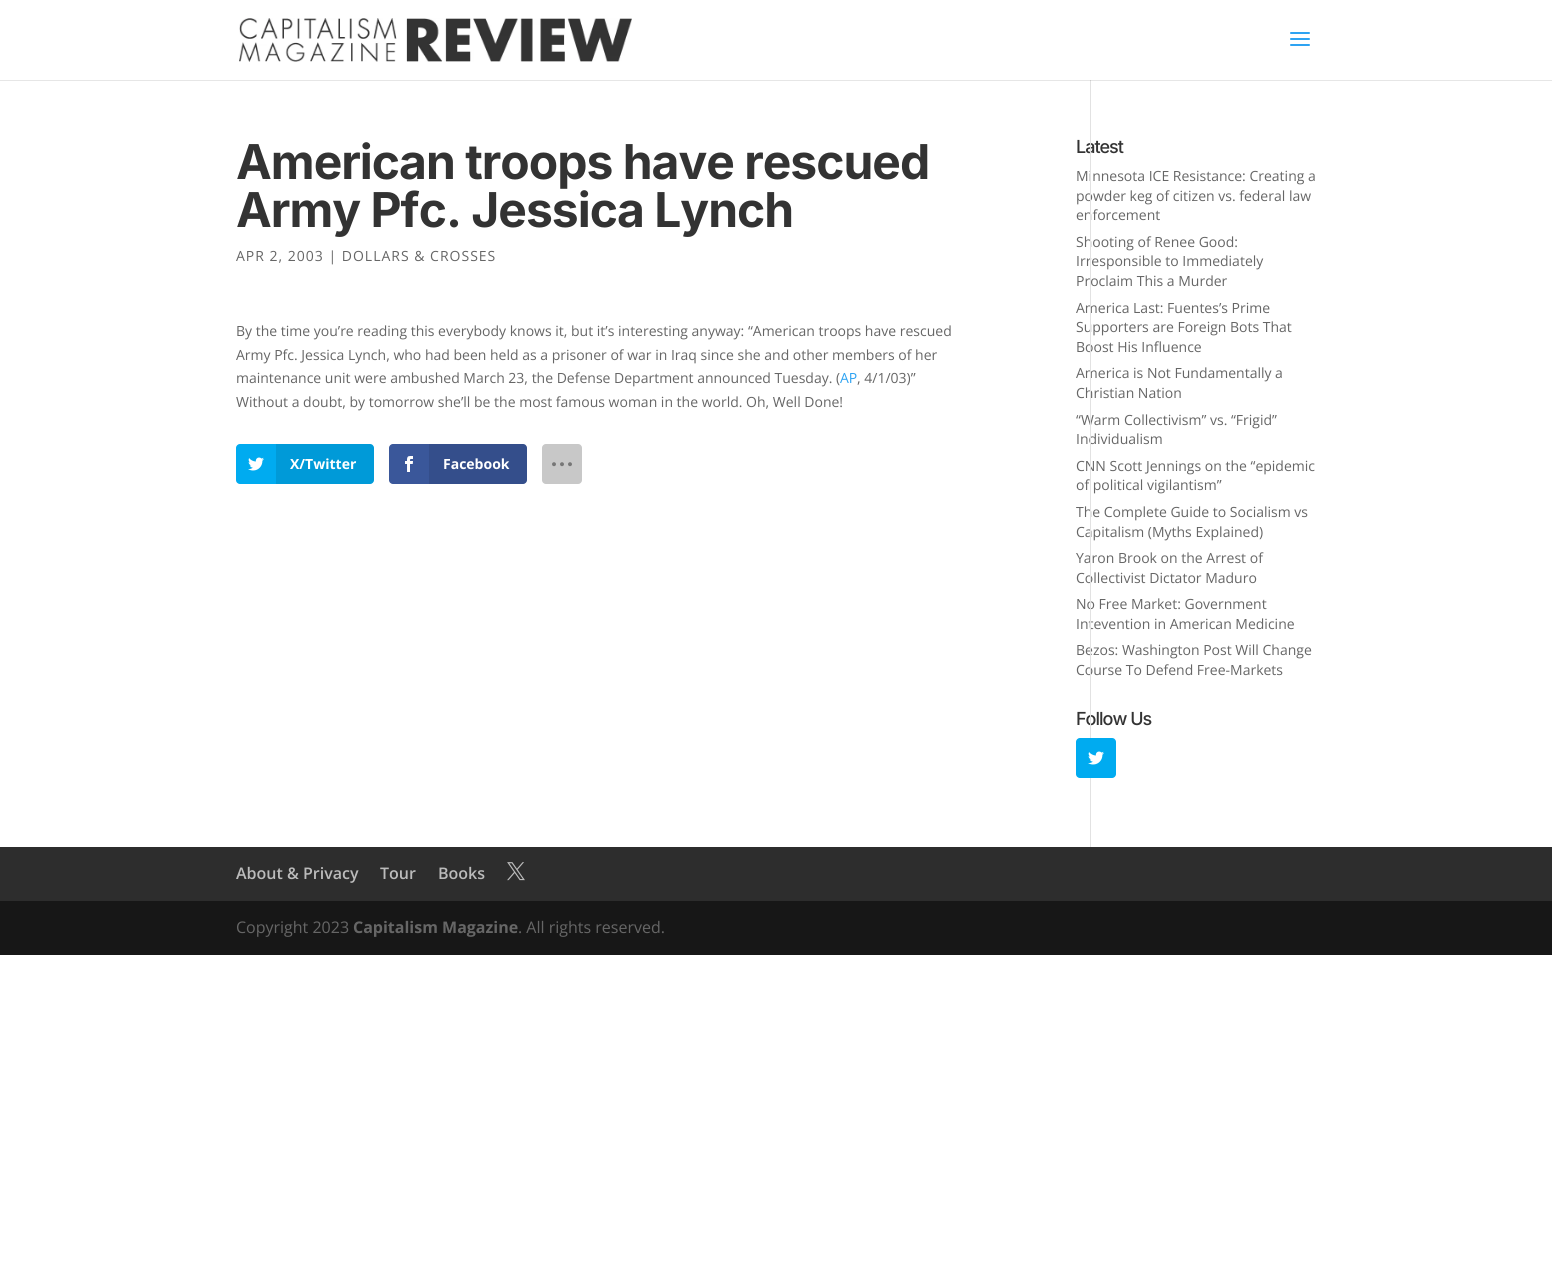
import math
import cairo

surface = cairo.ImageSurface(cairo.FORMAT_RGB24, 1552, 1263)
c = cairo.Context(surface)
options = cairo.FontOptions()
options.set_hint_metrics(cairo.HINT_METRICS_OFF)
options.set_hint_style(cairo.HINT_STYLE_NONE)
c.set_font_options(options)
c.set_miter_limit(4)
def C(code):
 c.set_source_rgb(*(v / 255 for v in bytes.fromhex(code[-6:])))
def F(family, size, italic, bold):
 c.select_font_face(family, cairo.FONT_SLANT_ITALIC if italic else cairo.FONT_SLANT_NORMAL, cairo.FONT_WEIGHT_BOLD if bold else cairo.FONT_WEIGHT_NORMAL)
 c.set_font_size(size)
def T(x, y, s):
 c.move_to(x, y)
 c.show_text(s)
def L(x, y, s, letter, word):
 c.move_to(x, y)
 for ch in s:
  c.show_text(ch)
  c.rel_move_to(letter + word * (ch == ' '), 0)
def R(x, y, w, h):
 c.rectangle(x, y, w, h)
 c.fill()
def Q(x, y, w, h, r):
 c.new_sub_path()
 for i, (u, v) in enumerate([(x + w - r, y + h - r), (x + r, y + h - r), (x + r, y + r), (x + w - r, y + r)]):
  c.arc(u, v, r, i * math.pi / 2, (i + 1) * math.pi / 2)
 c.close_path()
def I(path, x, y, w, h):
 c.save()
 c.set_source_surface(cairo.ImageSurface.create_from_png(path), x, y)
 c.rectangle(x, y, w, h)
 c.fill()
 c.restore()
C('ffffff')
c.paint()
C('e6e6e6')
R(0,80,1552,1)
I('1.png',239,18,393,44)
I('2.png',1290,32,20,14)
F('Inter Medium',18,0,0)
C('333333')
L(1076,153,'Latest',-1,0)
F('Open Sans',14,0,0)
C('666666')
T(1076,181,'Minnesota ICE Resistance: Creating a')
T(1076,201,'powder keg of citizen vs. federal law')
T(1076,220,'enforcement')
T(1076,247,'Shooting of Renee Good:')
T(1076,266,'Irresponsible to Immediately')
T(1076,286,'Proclaim This a Murder')
T(1076,313,'America Last: Fuentes’s Prime')
T(1076,332,'Supporters are Foreign Bots That')
T(1076,352,'Boost His Influence')
T(1076,378,'America is Not Fundamentally a')
T(1076,398,'Christian Nation')
T(1076,425,'“Warm Collectivism” vs. “Frigid”')
T(1076,444,'Individualism')
T(1076,471,'CNN Scott Jennings on the “epidemic')
T(1076,490,'of political vigilantism”')
T(1076,517,'The Complete Guide to Socialism vs')
T(1076,537,'Capitalism (Myths Explained)')
T(1076,563,'Yaron Brook on the Arrest of')
T(1076,583,'Collectivist Dictator Maduro')
T(1076,609,'No Free Market: Government')
T(1076,629,'Intevention in American Medicine')
T(1076,655,'Bezos: Washington Post Will Change')
T(1076,675,'Course To Defend Free-Markets')
F('Inter Medium',18,0,0)
C('333333')
L(1076,725,'Follow Us',-1,0)
C('e2e2e2')
R(1090,80,1,767)
C('cbcbcb')
R(1090,80,1,1)
F('Inter',48,0,1)
C('333333')
L(236,179,'American troops have rescued',-1,0)
L(236,227,'Army Pfc. Jessica Lynch',-1,0)
F('Open Sans',14,0,0)
C('666666')
L(236,261,'APR 2, 2003 | DOLLARS & CROSSES',1,0)
T(236,336,'By the time you’re reading this everybody knows it, but it’s interesting anyway: “American troops have rescued')
T(236,360,'Army Pfc. Jessica Lynch, who had been held as a prisoner of war in Iraq since she and other members of her')
T(236,383,'maintenance unit were ambushed March 23, the Defense Department announced Tuesday. (')
C('2ea3f2')
T(840,383,'AP')
C('666666')
T(857,383,', 4/1/03)”')
T(236,407,'Without a doubt, by tomorrow she’ll be the most famous woman in the world. Oh, Well Done!')
C('00abf0')
Q(236,444,138,40,4)
c.fill()
I('3.png',248,457,16,14)
c.set_source_rgba(0,0,0,0.1)
c.new_path()
c.move_to(276,444)
c.line_to(370,444)
c.curve_to(372,444,374,446,374,448)
c.line_to(374,480)
c.curve_to(374,482,372,484,370,484)
c.line_to(276,484)
c.close_path()
c.fill()
F('Open Sans',14,0,1)
C('ffffff')
T(290,469,'X/Twitter')
C('3a579a')
Q(389,444,138,40,4)
c.fill()
I('4.png',405,456,8,16)
c.set_source_rgba(0,0,0,0.1)
c.new_path()
c.move_to(429,444)
c.line_to(523,444)
c.curve_to(525,444,527,446,527,448)
c.line_to(527,480)
c.curve_to(527,482,525,484,523,484)
c.line_to(429,484)
c.close_path()
c.fill()
C('ffffff')
T(443,469,'Facebook')
C('dedede')
Q(542,444,40,40,4)
c.fill()
c.set_source_rgba(0,0,0,0.1)
Q(542,444,40,40,4)
c.fill()
I('5.png',552,462,20,5)
C('00abf0')
Q(1076,738,40,40,4)
c.fill()
I('3.png',1088,751,16,14)
C('2d2d2d')
R(0,847,1552,54)
F('Open Sans SemiBold',16,0,0)
C('bbbbbb')
T(236,879,'About & Privacy')
T(380,879,'Tour')
T(438,879,'Books')
I('6.png',507,862,18,19)
C('171717')
R(0,901,1552,54)
F('Open Sans',16,0,0)
C('666666')
T(236,933,'Copyright 2023')
F('Open Sans',16,0,1)
T(353,933,'Capitalism Magazine')
F('Open Sans',16,0,0)
T(518,933,'. All rights reserved.')
surface.write_to_png('o.png')
